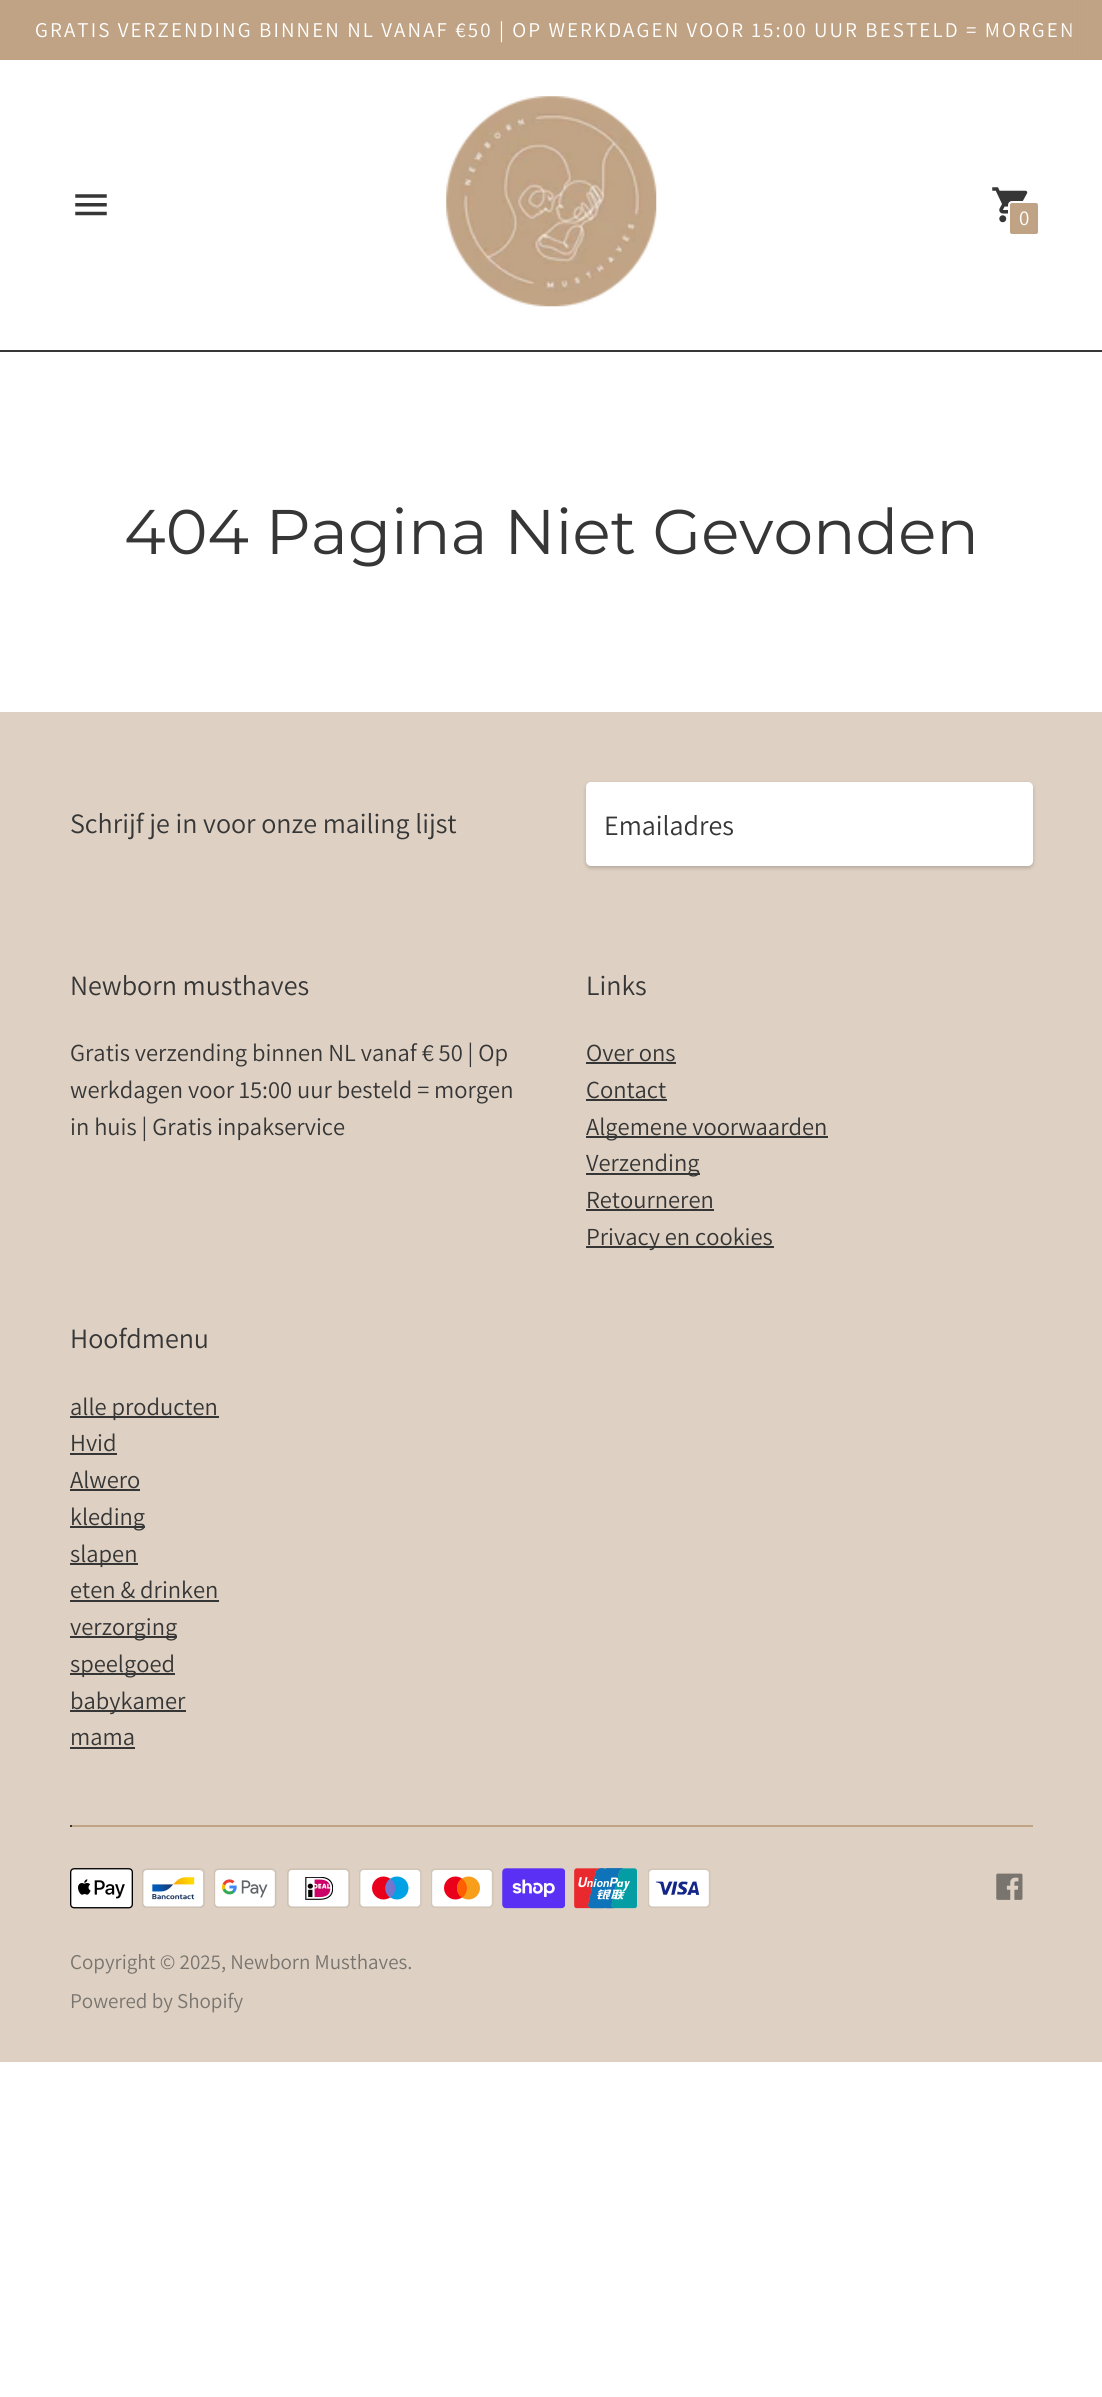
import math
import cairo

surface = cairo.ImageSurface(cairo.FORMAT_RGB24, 1102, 2397)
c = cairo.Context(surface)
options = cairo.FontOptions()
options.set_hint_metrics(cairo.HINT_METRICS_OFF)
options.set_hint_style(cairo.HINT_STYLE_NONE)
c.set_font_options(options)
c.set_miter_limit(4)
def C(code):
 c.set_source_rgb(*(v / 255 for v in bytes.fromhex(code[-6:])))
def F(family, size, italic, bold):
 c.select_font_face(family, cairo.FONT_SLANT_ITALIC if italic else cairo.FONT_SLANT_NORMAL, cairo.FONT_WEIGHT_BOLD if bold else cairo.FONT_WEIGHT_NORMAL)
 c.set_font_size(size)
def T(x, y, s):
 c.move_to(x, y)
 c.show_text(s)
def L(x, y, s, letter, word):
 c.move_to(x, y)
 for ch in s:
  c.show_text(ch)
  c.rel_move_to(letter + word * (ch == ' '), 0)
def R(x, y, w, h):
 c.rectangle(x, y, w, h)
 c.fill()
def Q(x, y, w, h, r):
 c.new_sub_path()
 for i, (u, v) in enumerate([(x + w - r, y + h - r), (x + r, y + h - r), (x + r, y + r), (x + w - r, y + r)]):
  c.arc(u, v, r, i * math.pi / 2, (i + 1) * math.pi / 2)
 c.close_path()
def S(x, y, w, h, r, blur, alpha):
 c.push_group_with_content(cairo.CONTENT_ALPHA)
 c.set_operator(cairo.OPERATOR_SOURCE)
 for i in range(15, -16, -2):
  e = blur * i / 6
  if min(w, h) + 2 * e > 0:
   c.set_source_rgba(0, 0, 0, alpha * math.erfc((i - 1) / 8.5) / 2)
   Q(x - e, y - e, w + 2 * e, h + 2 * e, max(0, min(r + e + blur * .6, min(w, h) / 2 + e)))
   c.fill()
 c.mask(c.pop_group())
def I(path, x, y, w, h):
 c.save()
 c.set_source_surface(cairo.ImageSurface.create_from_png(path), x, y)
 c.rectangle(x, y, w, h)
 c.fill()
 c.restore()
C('ffffff')
c.paint()
C('c0a384')
R(0,0,1082,60)
F('Assistant',21,0,0)
C('ffffff')
L(35,37,'GRATIS VERZENDING BINNEN NL VANAF €50 | OP WERKDAGEN VOOR 15:00 UUR BESTELD = MORGEN',2.1,0)
gradient = cairo.LinearGradient(1068,30,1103,30)
gradient.add_color_stop_rgba(0,0.753,0.639,0.518,0)
gradient.add_color_stop_rgba(.4,0.753,0.639,0.518,1)
c.set_source(gradient)
R(1068,0,34,60)
C('363636')
R(0,350,1102,2)
I('1.png',75,194,32,22)
I('2.png',446,96,211,211)
I('3.png',992,187,36,36)
C('c0a384')
Q(1009,202,30,33,3)
c.fill_preserve()
C('ffffff')
c.stroke()
T(1019,225,'0')
F('Montserrat',63,0,0)
C('363636')
T(124,554,'404 Pagina Niet Gevonden')
C('ded1c3')
R(0,712,1102,1350)
F('Assistant',28,0,0)
C('363636')
T(70,833,'Schrijf je in voor onze mailing lijst')
C('000000')
S(586,784,447,84,5,2,.2)
C('ffffff')
Q(586,782,447,84,5)
c.fill()
C('363636')
T(604,835,'Emailadres')
T(70,995,'Newborn musthaves')
F('Assistant',24.5,0,0)
T(70,1061,'Gratis verzending binnen NL vanaf € 50 | Op')
T(70,1098,'werkdagen voor 15:00 uur besteld = morgen')
T(70,1135,'in huis | Gratis inpakservice')
F('Assistant',28,0,0)
T(586,995,'Links')
F('Assistant',24.5,0,0)
T(586,1061,'Over ons')
R(586,1062,90,2)
T(586,1098,'Contact')
R(586,1099,81,2)
R(586,1136,242,2)
T(586,1135,'Algemene voorwaarden')
R(586,1173,114,2)
T(586,1171,'Verzending')
T(586,1208,'Retourneren')
R(586,1209,128,2)
R(586,1246,188,2)
T(586,1245,'Privacy en cookies')
F('Assistant',28,0,0)
T(70,1348,'Hoofdmenu')
R(70,1416,149,2)
F('Assistant',24.5,0,0)
T(70,1415,'alle producten')
T(70,1451,'Hvid')
R(70,1453,47,2)
T(70,1488,'Alwero')
R(70,1489,70,2)
R(70,1526,75,2)
T(70,1525,'kleding')
R(70,1563,68,2)
T(70,1562,'slapen')
T(70,1598,'eten & drinken')
R(70,1600,149,2)
R(70,1636,107,2)
T(70,1635,'verzorging')
R(70,1673,105,2)
T(70,1672,'speelgoed')
R(70,1710,116,2)
T(70,1709,'babykamer')
T(70,1745,'mama')
R(70,1747,65,2)
C('c0a384')
R(70,1825,963,2)
C('363636')
R(70,1825,2,2)
I('4.png',996,1873,27,27)
I('5.png',70,1868,63,41)
I('6.png',142,1868,63,40)
I('7.png',214,1868,63,40)
I('8.png',287,1868,63,40)
I('9.png',359,1868,63,40)
I('10.png',431,1868,63,40)
I('11.png',502,1868,63,41)
I('12.png',574,1868,63,41)
I('13.png',648,1868,63,40)
F('Assistant',21,0,0)
C('79746e')
T(70,1969,'Copyright © 2025, Newborn Musthaves.')
T(70,2008,'Powered by Shopify')
surface.write_to_png('o.png')
